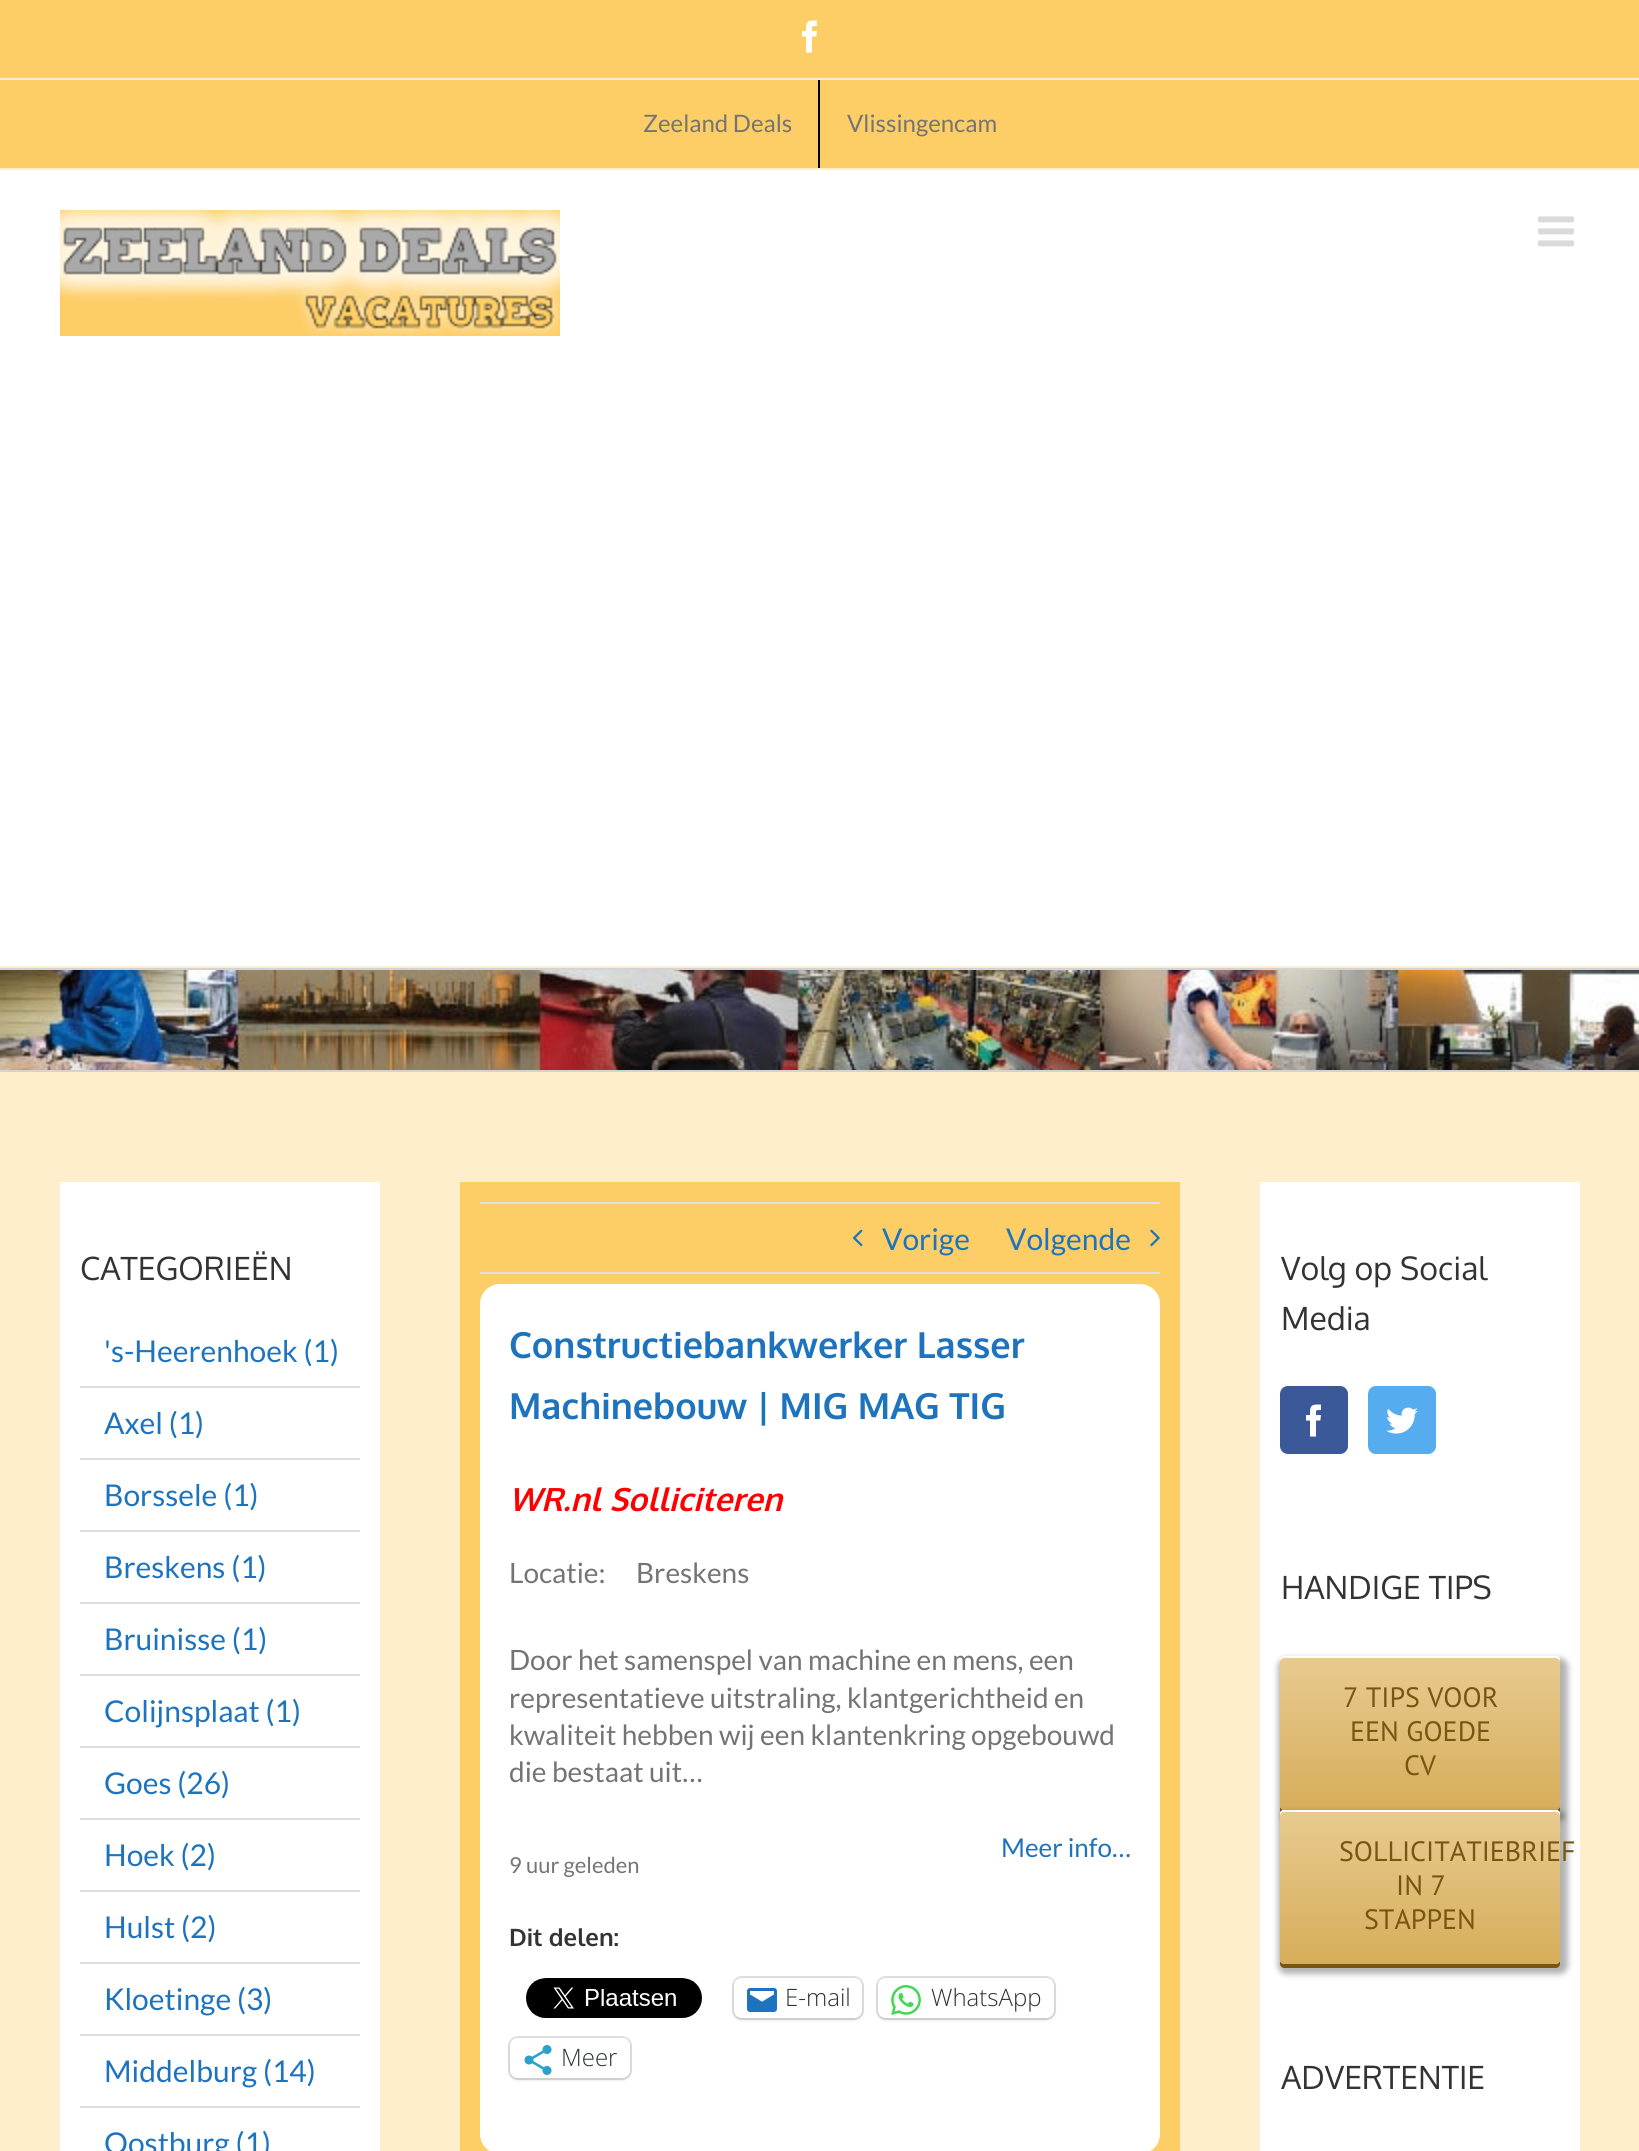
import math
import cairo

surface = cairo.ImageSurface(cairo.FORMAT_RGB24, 1639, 2151)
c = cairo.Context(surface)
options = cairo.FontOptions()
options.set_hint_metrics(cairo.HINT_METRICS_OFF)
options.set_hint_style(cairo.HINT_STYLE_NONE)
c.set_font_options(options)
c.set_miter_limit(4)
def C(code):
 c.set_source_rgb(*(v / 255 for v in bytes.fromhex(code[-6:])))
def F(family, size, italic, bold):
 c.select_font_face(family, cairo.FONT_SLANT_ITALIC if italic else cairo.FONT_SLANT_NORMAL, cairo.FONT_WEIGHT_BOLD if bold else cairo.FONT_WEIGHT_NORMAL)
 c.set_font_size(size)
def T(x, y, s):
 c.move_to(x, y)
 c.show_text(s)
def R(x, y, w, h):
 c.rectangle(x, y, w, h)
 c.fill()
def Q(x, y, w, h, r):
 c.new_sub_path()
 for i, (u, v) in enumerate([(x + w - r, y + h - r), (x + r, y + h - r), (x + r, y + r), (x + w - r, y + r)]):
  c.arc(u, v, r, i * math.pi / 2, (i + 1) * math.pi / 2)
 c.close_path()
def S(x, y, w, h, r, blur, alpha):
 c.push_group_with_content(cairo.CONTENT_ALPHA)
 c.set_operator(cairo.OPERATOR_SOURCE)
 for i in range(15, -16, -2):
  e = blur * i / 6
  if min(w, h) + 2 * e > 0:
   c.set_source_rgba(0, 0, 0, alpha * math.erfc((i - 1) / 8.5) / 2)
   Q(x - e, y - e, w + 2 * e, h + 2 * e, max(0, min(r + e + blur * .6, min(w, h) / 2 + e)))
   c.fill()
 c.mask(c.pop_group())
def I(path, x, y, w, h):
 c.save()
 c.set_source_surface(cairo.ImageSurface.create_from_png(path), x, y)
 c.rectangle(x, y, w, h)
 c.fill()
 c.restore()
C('feeecc')
c.paint()
C('fdcd66')
R(0,0,1639,168)
C('feeecc')
R(0,78,1639,2)
I('1.png',802,20,15,33)
F('Lato',24,0,0)
C('747474')
T(643,132,'Zeeland Deals')
C('000000')
R(818,80,2,88)
C('747474')
T(847,132,'Vlissingencam')
C('ffffff')
R(0,170,1639,796)
I('2.png',60,210,500,126)
I('3.png',1538,216,36,31)
I('4.png',0,970,1639,100)
C('d2d3d4')
R(0,968,1639,2)
R(0,1070,1639,2)
C('ffffff')
R(60,1182,320,969)
F('Oxygen',32,0,0)
C('333333')
T(80,1280,'CATEGORIEËN')
C('e0dede')
R(80,1386,280,2)
F('Lato',30,0,0)
C('1e73be')
T(104,1362,'\'s-Heerenhoek (1)')
C('e0dede')
R(80,1458,280,2)
C('1e73be')
T(104,1434,'Axel (1)')
C('e0dede')
R(80,1530,280,2)
C('1e73be')
T(104,1506,'Borssele (1)')
C('e0dede')
R(80,1602,280,2)
C('1e73be')
T(104,1578,'Breskens (1)')
C('e0dede')
R(80,1674,280,2)
C('1e73be')
T(104,1650,'Bruinisse (1)')
C('e0dede')
R(80,1746,280,2)
C('1e73be')
T(104,1722,'Colijnsplaat (1)')
C('e0dede')
R(80,1818,280,2)
C('1e73be')
T(104,1794,'Goes (26)')
C('e0dede')
R(80,1890,280,2)
C('1e73be')
T(104,1866,'Hoek (2)')
C('e0dede')
R(80,1962,280,2)
C('1e73be')
T(104,1938,'Hulst (2)')
C('e0dede')
R(80,2034,280,2)
C('1e73be')
T(104,2010,'Kloetinge (3)')
C('e0dede')
R(80,2106,280,2)
C('1e73be')
T(104,2082,'Middelburg (14)')
T(104,2154,'Oostburg (1)')
C('fdcd66')
R(460,1182,720,969)
C('e0dede')
R(480,1202,680,2)
R(480,1272,680,2)
I('5.png',852,1229,11,18)
C('1e73be')
T(882,1250,'Vorige')
T(1006,1250,'Volgende')
I('6.png',1150,1229,10,18)
C('ffffff')
Q(480,1284,680,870,20)
c.fill()
F('Oxygen',36,0,1)
C('1e73be')
T(509,1358,'Constructiebankwerker Lasser')
T(509,1419,'Machinebouw | MIG MAG TIG')
F('Oxygen',32,1,1)
C('ff0000')
T(509,1511,'WR.nl Solliciteren')
F('Lato',28,0,0)
C('747474')
T(509,1583,'Locatie:')
T(636,1583,'Breskens')
T(509,1670,'Door het samenspel van machine en mens, een')
T(509,1708,'representatieve uitstraling, klantgerichtheid en')
T(509,1745,'kwaliteit hebben wij een klantenkring opgebouwd')
T(509,1782,'die bestaat uit…')
F('Lato',26,0,0)
C('1e73be')
T(1001,1857,'Meer info…')
F('Lato',22,0,0)
C('747474')
T(509,1873,'9 uur geleden')
F('Oxygen',24,0,1)
C('333333')
T(509,1946,'Dit delen:')
I('7.png',526,1978,176,40)
Q(733,1977,130,42,9)
C('e0e0e0')
c.stroke()
C('000000')
S(734,1980,128,40,8,2,.12)
C('ffffff')
Q(734,1978,128,40,8)
c.fill()
I('8.png',747,1988,30,24)
F('Open Sans Light',24,0,0)
C('2c3338')
T(785,2006,'E-mail')
Q(877,1977,178,42,9)
C('e0e0e0')
c.stroke()
C('000000')
S(878,1980,176,40,8,2,.12)
C('ffffff')
Q(878,1978,176,40,8)
c.fill()
I('9.png',891,1985,30,30)
C('2c3338')
T(931,2006,'WhatsApp')
Q(509,2037,122,42,9)
C('e0e0e0')
c.stroke()
C('000000')
S(510,2040,120,40,8,2,.12)
C('ffffff')
Q(510,2038,120,40,8)
c.fill()
I('10.png',524,2045,28,30)
C('2c3338')
T(561,2066,'Meer')
C('ffffff')
R(1260,1182,320,969)
F('Oxygen',32,0,0)
C('333333')
T(1281,1280,'Volg op Social')
T(1281,1330,'Media')
C('3b5998')
Q(1281,1387,66,66,7)
c.fill_preserve()
c.stroke()
I('11.png',1306,1404,15,33)
C('55acee')
Q(1369,1387,66,66,7)
c.fill_preserve()
c.stroke()
I('12.png',1386,1407,32,27)
C('333333')
T(1281,1599,'HANDIGE TIPS')
C('000000')
S(1278,1658,290,162,8,3,.3)
C('785510')
c.new_path()
c.move_to(1280,1806)
c.line_to(1280,1810)
c.curve_to(1280,1812,1282,1814,1284,1814)
c.line_to(1556,1814)
c.curve_to(1558,1814,1560,1812,1560,1810)
c.line_to(1560,1806)
c.curve_to(1560,1808,1558,1810,1556,1810)
c.line_to(1284,1810)
c.curve_to(1282,1810,1280,1808,1280,1806)
c.close_path()
c.fill()
gradient = cairo.LinearGradient(1420,1656,1420,1810)
gradient.add_color_stop_rgba(0,0.91,0.796,0.565,1)
gradient.add_color_stop_rgba(1,0.839,0.678,0.353,1)
c.set_source(gradient)
Q(1280,1656,280,154,4)
c.fill()
C('ffffff')
c.new_path()
c.move_to(1284,1658)
c.line_to(1556,1658)
c.curve_to(1558,1658,1560,1660,1560,1662)
c.curve_to(1560,1659,1560,1656,1556,1656)
c.line_to(1284,1656)
c.curve_to(1280,1656,1280,1659,1280,1662)
c.curve_to(1280,1660,1282,1658,1284,1658)
c.close_path()
c.fill()
F('PT Sans',28,0,0)
C('785510')
T(1343,1707,'7 TIPS VOOR')
T(1350,1741,'EEN GOEDE')
T(1404,1775,'CV')
C('000000')
S(1278,1812,290,162,8,3,.3)
C('785510')
c.new_path()
c.move_to(1280,1960)
c.line_to(1280,1964)
c.curve_to(1280,1966,1282,1968,1284,1968)
c.line_to(1556,1968)
c.curve_to(1558,1968,1560,1966,1560,1964)
c.line_to(1560,1960)
c.curve_to(1560,1962,1558,1964,1556,1964)
c.line_to(1284,1964)
c.curve_to(1282,1964,1280,1962,1280,1960)
c.close_path()
c.fill()
gradient = cairo.LinearGradient(1420,1810,1420,1964)
gradient.add_color_stop_rgba(0,0.91,0.796,0.565,1)
gradient.add_color_stop_rgba(1,0.839,0.678,0.353,1)
c.set_source(gradient)
Q(1280,1810,280,154,4)
c.fill()
C('ffffff')
c.new_path()
c.move_to(1284,1812)
c.line_to(1556,1812)
c.curve_to(1558,1812,1560,1814,1560,1816)
c.curve_to(1560,1813,1560,1810,1556,1810)
c.line_to(1284,1810)
c.curve_to(1280,1810,1280,1813,1280,1816)
c.curve_to(1280,1814,1282,1812,1284,1812)
c.close_path()
c.fill()
C('785510')
T(1339,1861,'SOLLICITATIEBRIEF')
T(1396,1895,'IN 7')
T(1364,1929,'STAPPEN')
F('Oxygen',32,0,0)
C('333333')
T(1281,2089,'ADVERTENTIE')
surface.write_to_png('o.png')
